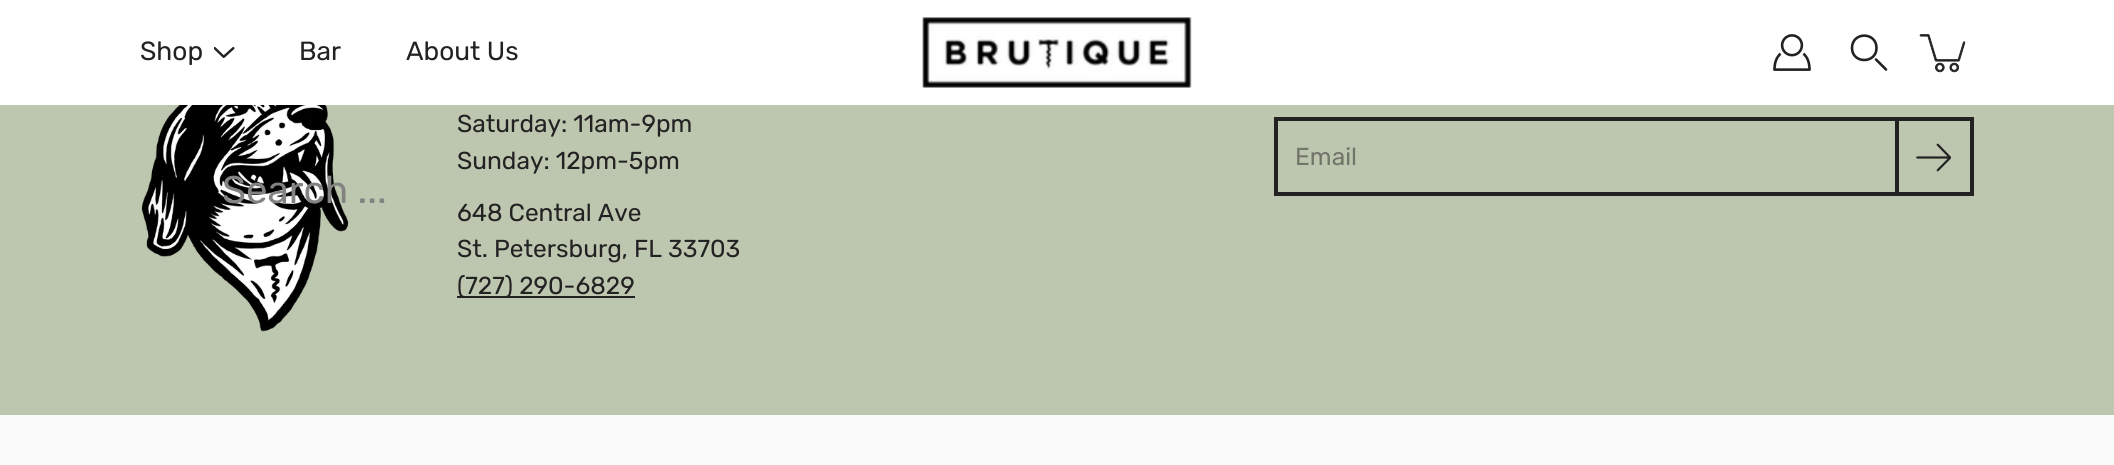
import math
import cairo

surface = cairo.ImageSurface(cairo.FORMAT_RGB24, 2114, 465)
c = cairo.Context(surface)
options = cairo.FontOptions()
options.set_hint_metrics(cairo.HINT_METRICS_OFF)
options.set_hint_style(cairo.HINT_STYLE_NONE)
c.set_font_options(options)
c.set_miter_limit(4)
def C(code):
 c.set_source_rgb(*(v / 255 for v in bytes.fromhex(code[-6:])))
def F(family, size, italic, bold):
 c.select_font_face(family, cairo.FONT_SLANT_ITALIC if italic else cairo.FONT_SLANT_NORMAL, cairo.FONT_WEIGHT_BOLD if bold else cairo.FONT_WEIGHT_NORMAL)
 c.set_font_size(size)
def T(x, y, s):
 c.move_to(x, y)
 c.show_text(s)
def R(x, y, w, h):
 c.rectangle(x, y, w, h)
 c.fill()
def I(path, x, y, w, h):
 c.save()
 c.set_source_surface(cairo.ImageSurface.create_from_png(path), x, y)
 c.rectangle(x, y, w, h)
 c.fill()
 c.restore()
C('bdc6af')
c.paint()
C('ffffff')
R(0,0,2114,105)
F('Rubik',26.25,0,0)
C('222222')
T(140,60,'Shop')
I('1.png',214,47,21,11)
T(299,60,'Bar')
T(406,60,'About Us')
I('5.png',141,105,208,227)
F('Rubik',38.5,0,0)
C('838481')
T(222,203,'Search ...')
I('2.png',1773,34,38,37)
c.new_path()
c.move_to(1876.5,48)
c.curve_to(1876.5,64,1852,64,1852,48)
c.curve_to(1852,31.5,1876.5,31.5,1876.5,48)
c.close_path()
C('222222')
c.set_line_width(2.6)
c.stroke()
c.new_path()
c.move_to(1876,59.5)
c.line_to(1886,69.5)
c.set_line_cap(cairo.LINE_CAP_ROUND)
c.stroke()
I('3.png',1919,34,47,39)
I('4.png',922,17,270,71)
F('Rubik',24.5,0,0)
T(457,132,'Saturday: 11am-9pm')
T(457,169,'Sunday: 12pm-5pm')
T(457,221,'648 Central Ave')
T(457,257,'St. Petersburg, FL 33703')
R(457,296,178,2)
T(457,294,'(727) 290-6829')
c.rectangle(1276,119,696,75)
c.set_line_width(4)
c.set_line_cap(cairo.LINE_CAP_BUTT)
c.stroke()
C('707469')
T(1295,165,'Email')
c.rectangle(1897,119,75,75)
C('222222')
c.stroke()
I('6.png',1916,143,35,29)
C('fafafa')
R(0,415,2114,50)
surface.write_to_png('o.png')
